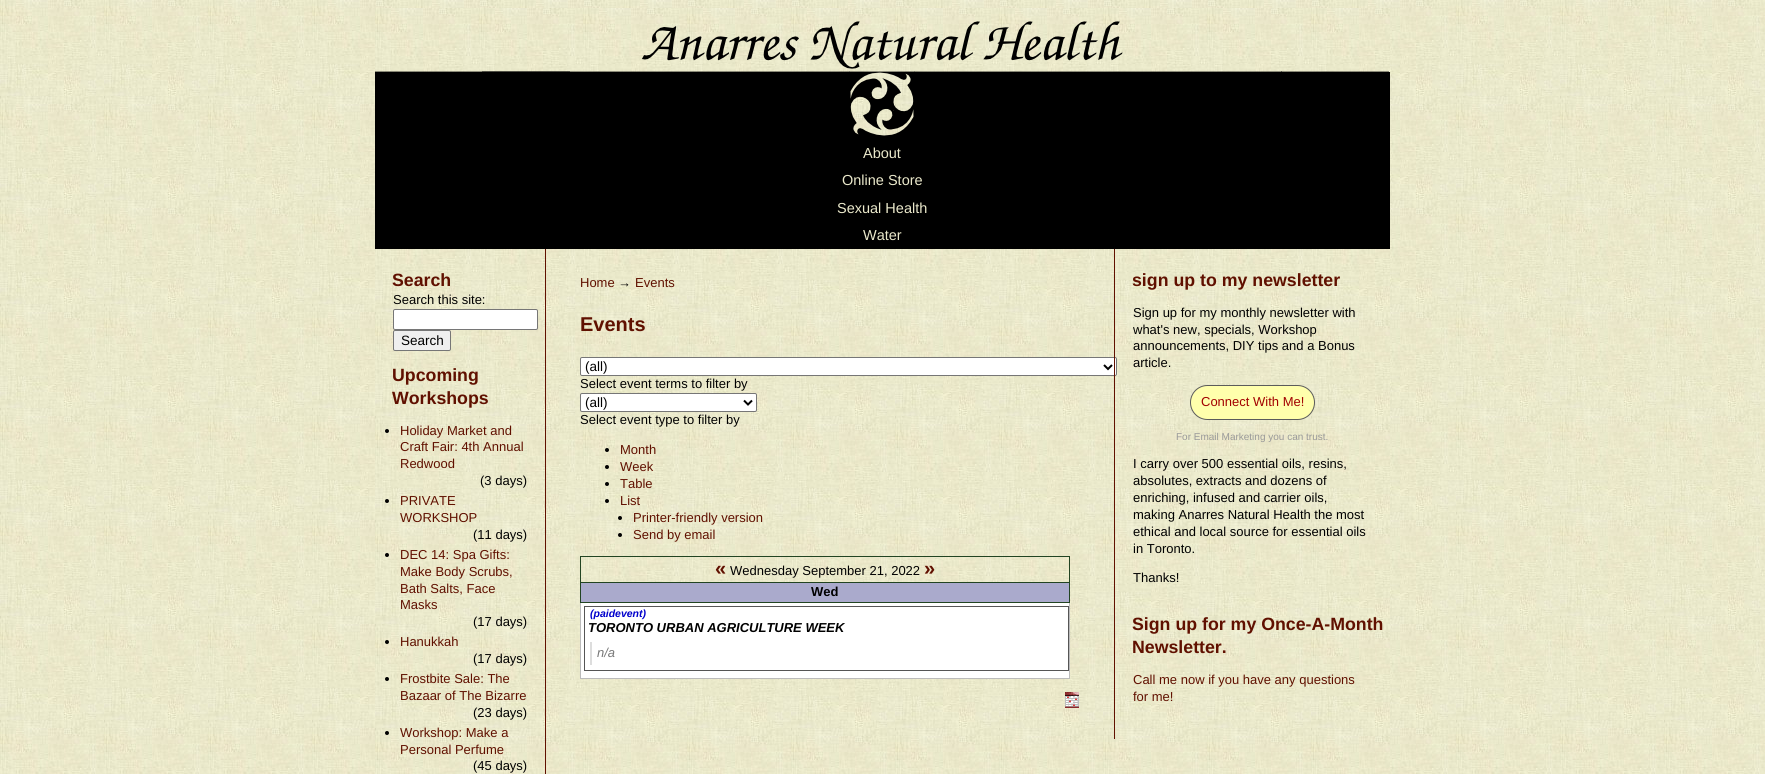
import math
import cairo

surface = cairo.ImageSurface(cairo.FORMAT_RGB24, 1765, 774)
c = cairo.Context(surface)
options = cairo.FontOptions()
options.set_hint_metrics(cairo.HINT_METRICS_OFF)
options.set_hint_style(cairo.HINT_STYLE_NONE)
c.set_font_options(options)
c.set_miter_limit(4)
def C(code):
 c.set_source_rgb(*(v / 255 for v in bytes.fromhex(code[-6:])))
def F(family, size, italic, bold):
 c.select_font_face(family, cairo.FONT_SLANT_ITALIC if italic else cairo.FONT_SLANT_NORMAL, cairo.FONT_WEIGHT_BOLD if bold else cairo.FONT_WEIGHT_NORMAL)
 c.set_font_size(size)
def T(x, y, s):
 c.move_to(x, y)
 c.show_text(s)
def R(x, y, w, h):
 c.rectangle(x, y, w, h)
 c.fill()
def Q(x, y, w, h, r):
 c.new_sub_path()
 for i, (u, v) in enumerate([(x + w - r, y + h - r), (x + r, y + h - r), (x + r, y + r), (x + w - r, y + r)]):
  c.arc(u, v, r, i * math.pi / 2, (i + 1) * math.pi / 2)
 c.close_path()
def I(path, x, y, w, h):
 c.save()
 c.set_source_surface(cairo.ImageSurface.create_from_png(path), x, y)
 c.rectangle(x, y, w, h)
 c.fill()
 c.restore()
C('ffffff')
c.paint()
I('1.png',0,0,1765,774)
I('2.png',375,249,1015,525)
I('3.png',375,8,1015,128)
I('4.png',375,21,1015,116)
C('000000')
R(375,137,1015,112)
C('ebe9cb')
c.arc(362,154,2,0,2 * math.pi)
c.fill()
F('Liberation Sans',14.5,0,0)
T(863,158,'About')
c.new_path()
c.arc(362,181,2,0,2 * math.pi)
c.fill()
T(842,185,'Online Store')
c.new_path()
c.arc(362,209,2,0,2 * math.pi)
c.fill()
T(837,213,'Sexual Health')
c.new_path()
c.arc(362,236,2,0,2 * math.pi)
c.fill()
T(863,240,'Water')
C('601000')
R(545,249,1,525)
F('Liberation Sans',17.75,0,1)
T(392,286,'Search')
F('Liberation Sans',13,0,0)
C('000000')
T(393,304,'Search this site:')
C('ffffff')
Q(393.5,309.5,144,20,1.5)
c.fill_preserve()
C('767676')
c.set_line_width(1)
c.stroke()
C('efefef')
Q(393.5,330.5,57,20,1.5)
c.fill_preserve()
C('767676')
c.stroke()
F('Liberation Sans',13.5,0,0)
C('000000')
T(401,345,'Search')
F('Liberation Sans',17.75,0,1)
C('601000')
T(392,381,'Upcoming')
T(392,404,'Workshops')
C('000000')
c.new_path()
c.arc(387,431,2,0,2 * math.pi)
c.fill()
F('Liberation Sans',13,0,0)
C('601000')
T(400,435,'Holiday Market and')
T(400,451,'Craft Fair: 4th Annual')
T(400,468,'Redwood')
C('000000')
T(480,485,'(3 days)')
c.new_path()
c.arc(387,501,2,0,2 * math.pi)
c.fill()
C('601000')
T(400,505,'PRIVATE')
T(400,522,'WORKSHOP')
C('000000')
T(473,539,'(11 days)')
c.new_path()
c.arc(387,555,2,0,2 * math.pi)
c.fill()
C('601000')
T(400,559,'DEC 14: Spa Gifts:')
T(400,576,'Make Body Scrubs,')
T(400,593,'Bath Salts, Face')
T(400,609,'Masks')
C('000000')
T(473,626,'(17 days)')
c.new_path()
c.arc(387,642,2,0,2 * math.pi)
c.fill()
C('601000')
T(400,646,'Hanukkah')
C('000000')
T(473,663,'(17 days)')
c.new_path()
c.arc(387,679,2,0,2 * math.pi)
c.fill()
C('601000')
T(400,683,'Frostbite Sale: The')
T(400,700,'Bazaar of The Bizarre')
C('000000')
T(473,717,'(23 days)')
c.new_path()
c.arc(387,733,2,0,2 * math.pi)
c.fill()
C('601000')
T(400,737,'Workshop: Make a')
T(400,754,'Personal Perfume')
C('000000')
T(473,770,'(45 days)')
C('601000')
T(580,287,'Home')
C('000000')
T(618,287,'→')
C('601000')
T(635,287,'Events')
F('Liberation Sans',20,0,1)
T(580,331,'Events')
C('ffffff')
Q(580.5,357.5,536,18,1.5)
c.fill_preserve()
C('767676')
c.stroke()
c.new_path()
c.move_to(1104,365)
c.line_to(1108,369)
c.line_to(1112,365)
C('000000')
c.set_line_width(2)
c.stroke()
F('Liberation Sans',13.5,0,0)
T(585,371,'(all)')
F('Liberation Sans',13,0,0)
T(580,388,'Select event terms to filter by')
C('ffffff')
Q(580.5,393.5,176,18,1.5)
c.fill_preserve()
C('767676')
c.set_line_width(1)
c.stroke()
c.new_path()
c.move_to(744,400.5)
c.line_to(748,404.5)
c.line_to(752,400.5)
C('000000')
c.set_line_width(2)
c.stroke()
F('Liberation Sans',13.5,0,0)
T(585,407,'(all)')
F('Liberation Sans',13,0,0)
T(580,424,'Select event type to filter by')
c.new_path()
c.arc(607,450,2,0,2 * math.pi)
c.fill()
C('601000')
T(620,454,'Month')
C('000000')
c.new_path()
c.arc(607,467,2,0,2 * math.pi)
c.fill()
C('601000')
T(620,471,'Week')
C('000000')
c.new_path()
c.arc(607,484,2,0,2 * math.pi)
c.fill()
C('601000')
T(620,488,'Table')
C('000000')
c.new_path()
c.arc(607,501,2,0,2 * math.pi)
c.fill()
C('601000')
T(620,505,'List')
C('000000')
c.new_path()
c.arc(620,518,2,0,2 * math.pi)
c.fill()
C('601000')
T(633,522,'Printer-friendly version')
C('000000')
c.new_path()
c.arc(620,535,2,0,2 * math.pi)
c.fill()
C('601000')
T(633,539,'Send by email')
C('224422')
R(580,556,490,1)
R(1069,556,1,26)
R(580,556,1,46)
F('Liberation Sans',20,0,1)
C('601000')
T(715,575,'«')
F('Liberation Sans',13,0,0)
C('000000')
T(730,575,'Wednesday September 21, 2022')
F('Liberation Sans',20,0,1)
C('601000')
T(924,575,'»')
C('aaaacc')
R(581,583,488,19)
C('224422')
R(580,582,490,1)
C('bbbbbb')
R(1069,602,1,77)
C('224422')
R(1069,582,1,21)
C('bbbbbb')
R(580,678,490,1)
R(580,602,1,77)
C('224422')
R(580,602,490,1)
F('Liberation Sans',13,0,1)
C('000000')
T(811,596,'Wed')
C('ffffff')
R(581,603,488,75)
c.rectangle(584.5,606.5,484,64)
C('555555')
c.set_line_width(1)
c.stroke()
F('Liberation Sans',10.5,1,1)
C('0000cc')
T(590,617,'(paidevent)')
F('Liberation Sans',13,1,1)
C('000000')
T(588,632,'TORONTO URBAN AGRICULTURE WEEK')
C('dddddd')
R(590,642,2,23)
F('Liberation Sans',13,1,0)
C('777777')
T(597,657,'n/a')
I('5.png',1065,692,14,16)
C('601000')
R(1114,249,1,490)
F('Liberation Sans',17.75,0,1)
T(1132,286,'sign up to my newsletter')
F('Liberation Sans',13,0,0)
C('000000')
T(1133,317,'Sign up for my monthly newsletter with')
T(1133,334,'what\'s new, specials, Workshop')
T(1133,350,'announcements, DIY tips and a Bonus')
T(1133,367,'article.')
C('ffffac')
Q(1190.5,385.5,124,34,17)
c.fill_preserve()
C('5b5b5b')
c.stroke()
C('a20000')
T(1201,406,'Connect With Me!')
F('Liberation Sans',10,0,0)
C('999999')
T(1176,440,'For Email Marketing you can trust.')
F('Liberation Sans',13,0,0)
C('000000')
T(1133,468,'I carry over 500 essential oils, resins,')
T(1133,485,'absolutes, extracts and dozens of')
T(1133,502,'enriching, infused and carrier oils,')
T(1133,519,'making Anarres Natural Health the most')
T(1133,536,'ethical and local source for essential oils')
T(1133,553,'in Toronto.')
T(1133,582,'Thanks!')
F('Liberation Sans',17.75,0,1)
C('601000')
T(1132,630,'Sign up for my Once-A-Month')
T(1132,653,'Newsletter.')
F('Liberation Sans',13,0,0)
T(1133,684,'Call me now if you have any questions')
T(1133,701,'for me!')
surface.write_to_png('o.png')
